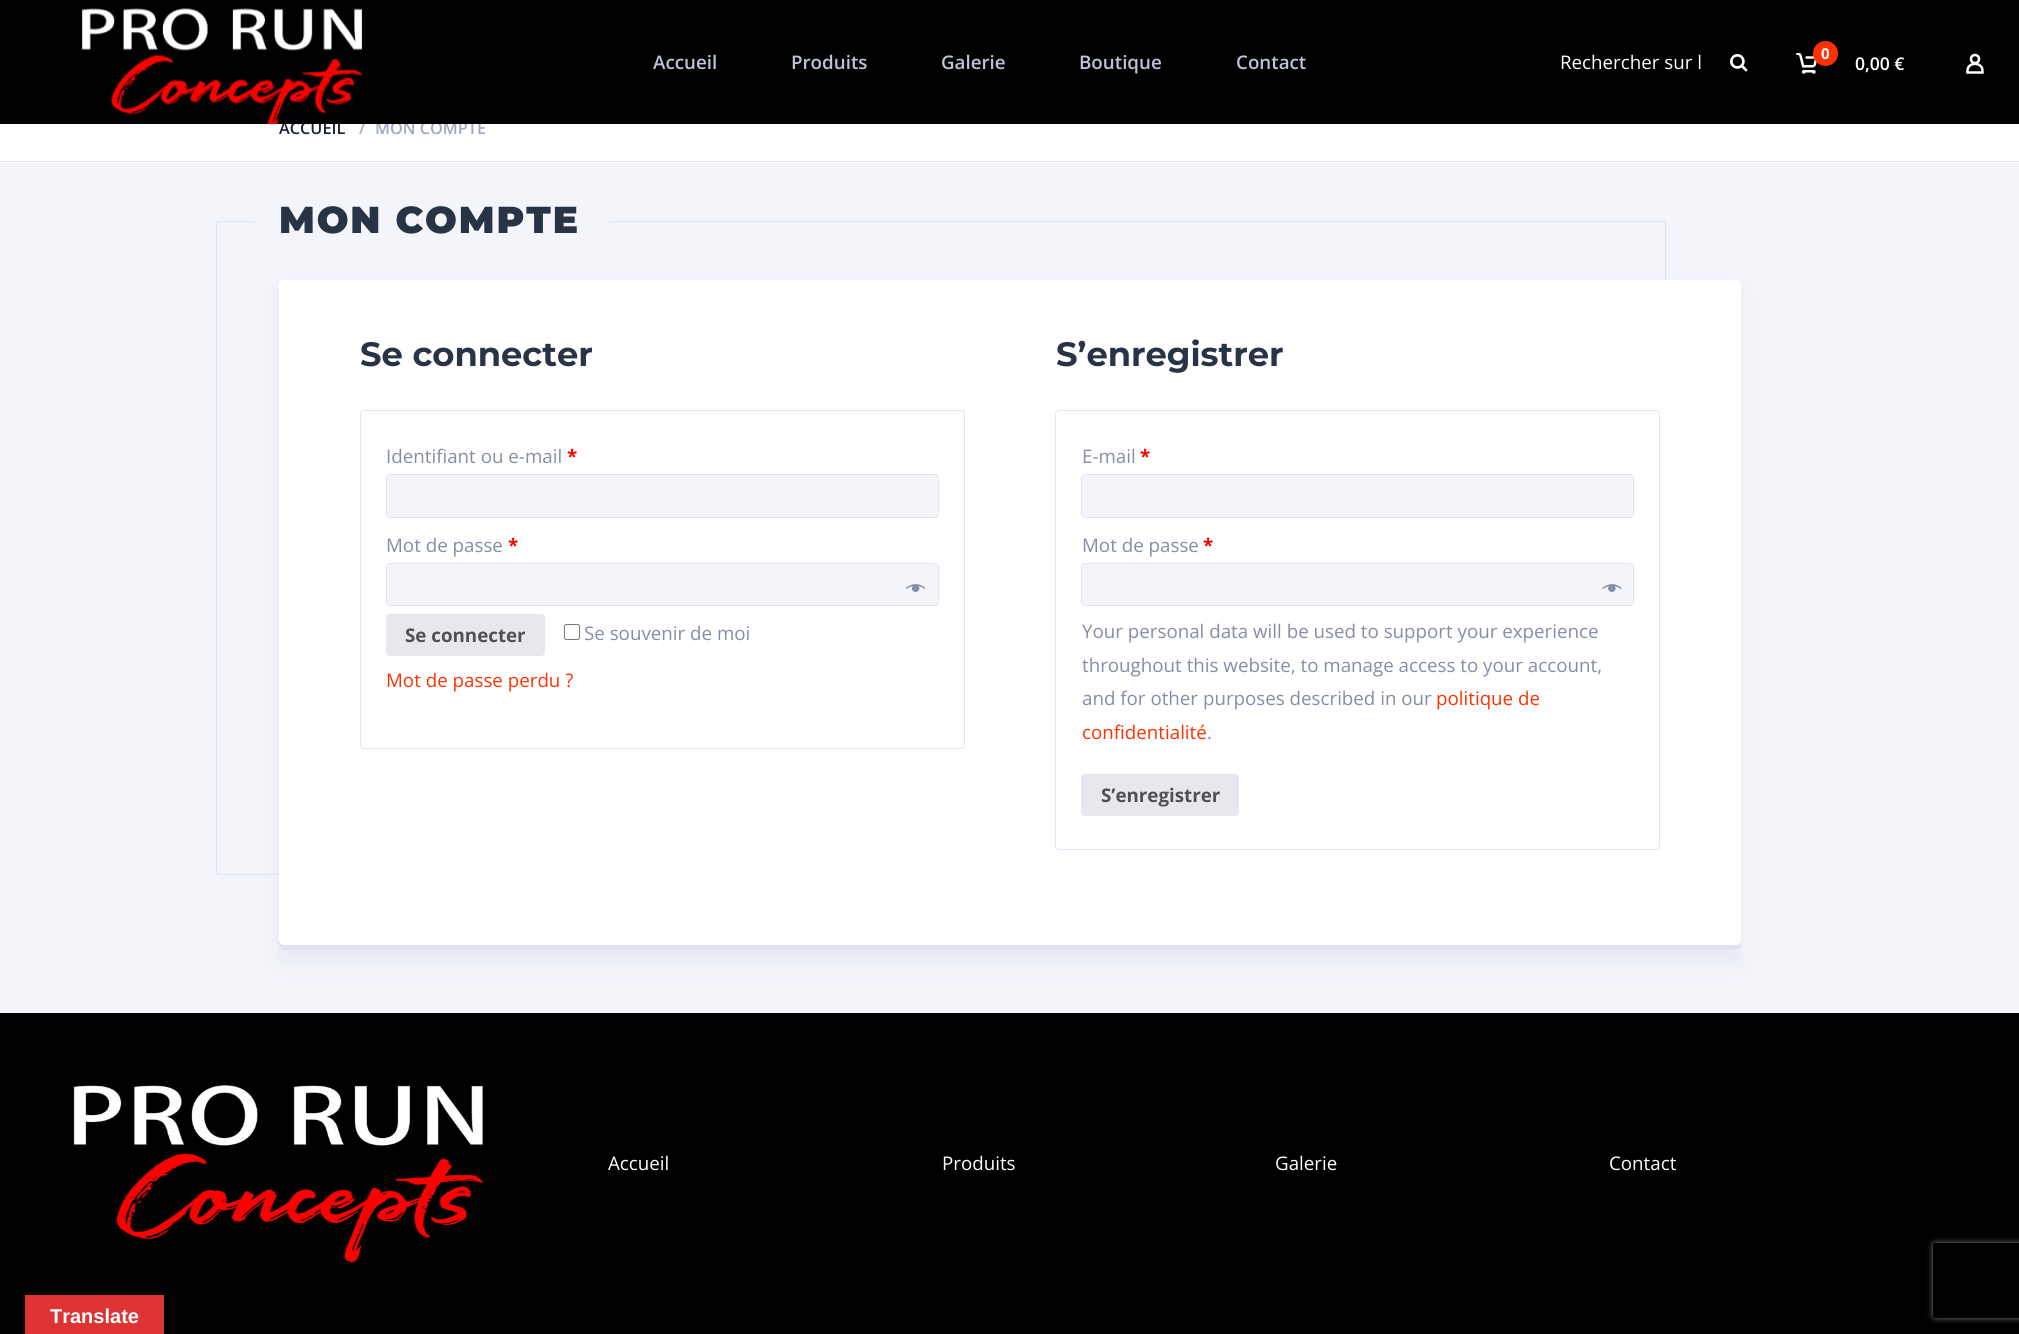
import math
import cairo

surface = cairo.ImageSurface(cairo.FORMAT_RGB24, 2019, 1334)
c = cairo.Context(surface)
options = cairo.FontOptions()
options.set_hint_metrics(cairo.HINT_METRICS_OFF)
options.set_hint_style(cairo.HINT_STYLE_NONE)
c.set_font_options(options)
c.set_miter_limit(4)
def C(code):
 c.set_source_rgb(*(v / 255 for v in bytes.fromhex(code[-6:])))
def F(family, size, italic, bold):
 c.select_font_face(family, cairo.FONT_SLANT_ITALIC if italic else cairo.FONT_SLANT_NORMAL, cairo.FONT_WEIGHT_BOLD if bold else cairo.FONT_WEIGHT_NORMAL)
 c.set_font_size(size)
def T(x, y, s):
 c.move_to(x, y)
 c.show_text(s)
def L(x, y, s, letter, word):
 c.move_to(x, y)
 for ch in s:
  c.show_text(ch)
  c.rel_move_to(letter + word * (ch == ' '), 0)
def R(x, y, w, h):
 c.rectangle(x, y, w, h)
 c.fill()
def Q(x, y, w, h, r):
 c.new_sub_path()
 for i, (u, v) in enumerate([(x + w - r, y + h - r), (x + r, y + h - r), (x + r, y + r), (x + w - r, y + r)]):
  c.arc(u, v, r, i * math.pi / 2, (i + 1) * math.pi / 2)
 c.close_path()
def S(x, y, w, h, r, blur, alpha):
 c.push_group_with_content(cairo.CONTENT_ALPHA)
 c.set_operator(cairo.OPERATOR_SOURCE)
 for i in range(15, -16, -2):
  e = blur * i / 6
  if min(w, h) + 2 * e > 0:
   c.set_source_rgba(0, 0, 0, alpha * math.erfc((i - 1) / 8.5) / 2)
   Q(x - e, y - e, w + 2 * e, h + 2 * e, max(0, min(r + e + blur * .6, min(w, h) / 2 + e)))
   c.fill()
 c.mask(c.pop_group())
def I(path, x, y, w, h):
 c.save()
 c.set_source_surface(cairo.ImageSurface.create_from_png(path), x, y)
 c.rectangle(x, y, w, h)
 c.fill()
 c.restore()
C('f4f5fb')
c.paint()
C('ffffff')
R(0,124,2019,39)
F('Open Sans SemiBold',16.25,0,0)
C('18202e')
T(279,134,'ACCUEIL')
C('a0a6c5')
T(359,134,'/')
T(375,134,'MON COMPTE')
C('000000')
R(0,0,2019,124)
I('1.png',81,8,282,116)
F('Open Sans SemiBold',18.75,0,0)
C('c0c4d7')
T(653,69,'Accueil')
T(791,69,'Produits')
T(941,69,'Galerie')
T(1079,69,'Boutique')
T(1236,69,'Contact')
F('Open Sans',18.75,0,0)
C('ffffff')
T(1560,69,'Rechercher sur l')
I('2.png',1730,54,18,18)
I('3.png',1796,53,21,21)
C('ff3100')
c.arc(1825.5,53.5,12.5,0,2 * math.pi)
c.fill()
F('Open Sans',15,0,1)
C('ffffff')
T(1821,59,'0')
F('Open Sans SemiBold',17.5,0,0)
T(1855,70,'0,00 €')
c.new_path()
c.move_to(1967.5,70.5)
c.curve_to(1967.5,63,1979,61.5,1982,68)
c.curve_to(1982.5,69.5,1982.5,71,1982.5,72.5)
c.line_to(1967.5,72.5)
c.close_path()
c.set_line_width(2.5)
c.stroke()
c.arc(1975,59,4,0,2 * math.pi)
c.stroke()
C('e0e4f6')
R(0,161,2019,1)
R(216,221,1,654)
R(216,221,38,1)
R(216,874,63,1)
F('Montserrat Black',37.5,0,0)
C('283346')
L(279,233,'MON COMPTE',1.9,0)
C('e0e4f6')
R(610,221,1056,1)
R(1665,221,1,59)
C('c0c4d7')
S(279,293,1462,670,5,12.5,.25)
C('ffffff')
Q(279,280,1462,670,5)
c.fill()
C('dfe2f0')
c.new_path()
c.move_to(279,940)
c.line_to(279,945)
c.curve_to(279,948,281,950,284,950)
c.line_to(1736,950)
c.curve_to(1739,950,1741,948,1741,945)
c.line_to(1741,940)
c.curve_to(1741,943,1739,945,1736,945)
c.line_to(284,945)
c.curve_to(281,945,279,943,279,940)
c.close_path()
c.fill()
F('Montserrat',33.75,0,1)
C('283346')
T(360,366,'Se connecter')
Q(360.5,410.5,604,338,3.5)
C('e0e4f6')
c.set_line_width(1)
c.stroke()
F('Open Sans',18.75,0,0)
C('868ca7')
T(386,463,'Identifiant ou e-mail')
F('Open Sans',18.75,0,1)
C('ff0000')
T(567,463,'*')
C('f4f5fb')
Q(386.5,474.5,552,43,3.5)
c.fill_preserve()
C('e0e4f6')
c.stroke()
F('Open Sans',18.75,0,0)
C('868ca7')
T(386,552,'Mot de passe')
F('Open Sans',18.75,0,1)
C('ff0000')
T(508,552,'*')
C('f4f5fb')
Q(386.5,563.5,552,42,3.5)
c.fill_preserve()
C('e0e4f6')
c.stroke()
I('4.png',906,584,19,8)
C('e9e6ed')
Q(386,614,159,42,4)
c.fill()
C('515151')
T(405,642,'Se connecter')
Q(564.5,624.5,15,15,2)
C('767676')
c.stroke()
F('Open Sans',18.75,0,0)
C('868ca7')
T(584,640,'Se souvenir de moi')
C('ff3100')
T(386,687,'Mot de passe perdu ?')
F('Montserrat',33.75,0,1)
C('283346')
T(1056,366,'S’enregistrer')
Q(1055.5,410.5,604,439,3.5)
C('e0e4f6')
c.stroke()
F('Open Sans',18.75,0,0)
C('868ca7')
T(1082,463,'E-mail')
F('Open Sans',18.75,0,1)
C('ff0000')
T(1140,463,'*')
C('f4f5fb')
Q(1081.5,474.5,552,43,3.5)
c.fill_preserve()
C('e0e4f6')
c.stroke()
F('Open Sans',18.75,0,0)
C('868ca7')
T(1082,552,'Mot de passe')
F('Open Sans',18.75,0,1)
C('ff0000')
T(1203,552,'*')
C('f4f5fb')
Q(1081.5,563.5,552,42,3.5)
c.fill_preserve()
C('e0e4f6')
c.stroke()
I('5.png',1602,584,20,8)
F('Open Sans',18.75,0,0)
C('868ca7')
T(1082,638,'Your personal data will be used to support your experience')
T(1082,672,'throughout this website, to manage access to your account,')
T(1082,705,'and for other purposes described in our')
C('ff3100')
T(1436,705,'politique de')
T(1082,739,'confidentialité')
C('868ca7')
T(1207,739,'.')
C('e9e6ed')
Q(1081,774,158,42,4)
c.fill()
F('Open Sans',18.75,0,1)
C('515151')
T(1101,802,'S’enregistrer')
C('000000')
R(0,1013,2019,321)
I('6.png',73,1085,412,179)
F('Open Sans',18.75,0,0)
C('ffffff')
T(608,1170,'Accueil')
T(942,1170,'Produits')
T(1275,1170,'Galerie')
T(1609,1170,'Contact')
C('dd3333')
R(25,1295,139,39)
F('Liberation Sans',20,0,1)
C('ffffff')
T(50,1323,'Translate')
c.save()
c.set_fill_rule(cairo.FILL_RULE_EVEN_ODD)
c.new_path()
c.move_to(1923,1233)
c.line_to(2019,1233)
c.line_to(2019,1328)
c.line_to(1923,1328)
c.close_path()
c.move_to(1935.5,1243)
c.line_to(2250.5,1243)
c.curve_to(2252,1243,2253,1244,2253,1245.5)
c.line_to(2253,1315.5)
c.curve_to(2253,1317,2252,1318,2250.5,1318)
c.line_to(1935.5,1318)
c.curve_to(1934,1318,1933,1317,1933,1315.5)
c.line_to(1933,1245.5)
c.curve_to(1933,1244,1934,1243,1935.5,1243)
c.close_path()
c.clip()
C('808080')
S(1933,1243,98,75,2.5,3,1)
c.restore()
surface.write_to_png('o.png')
